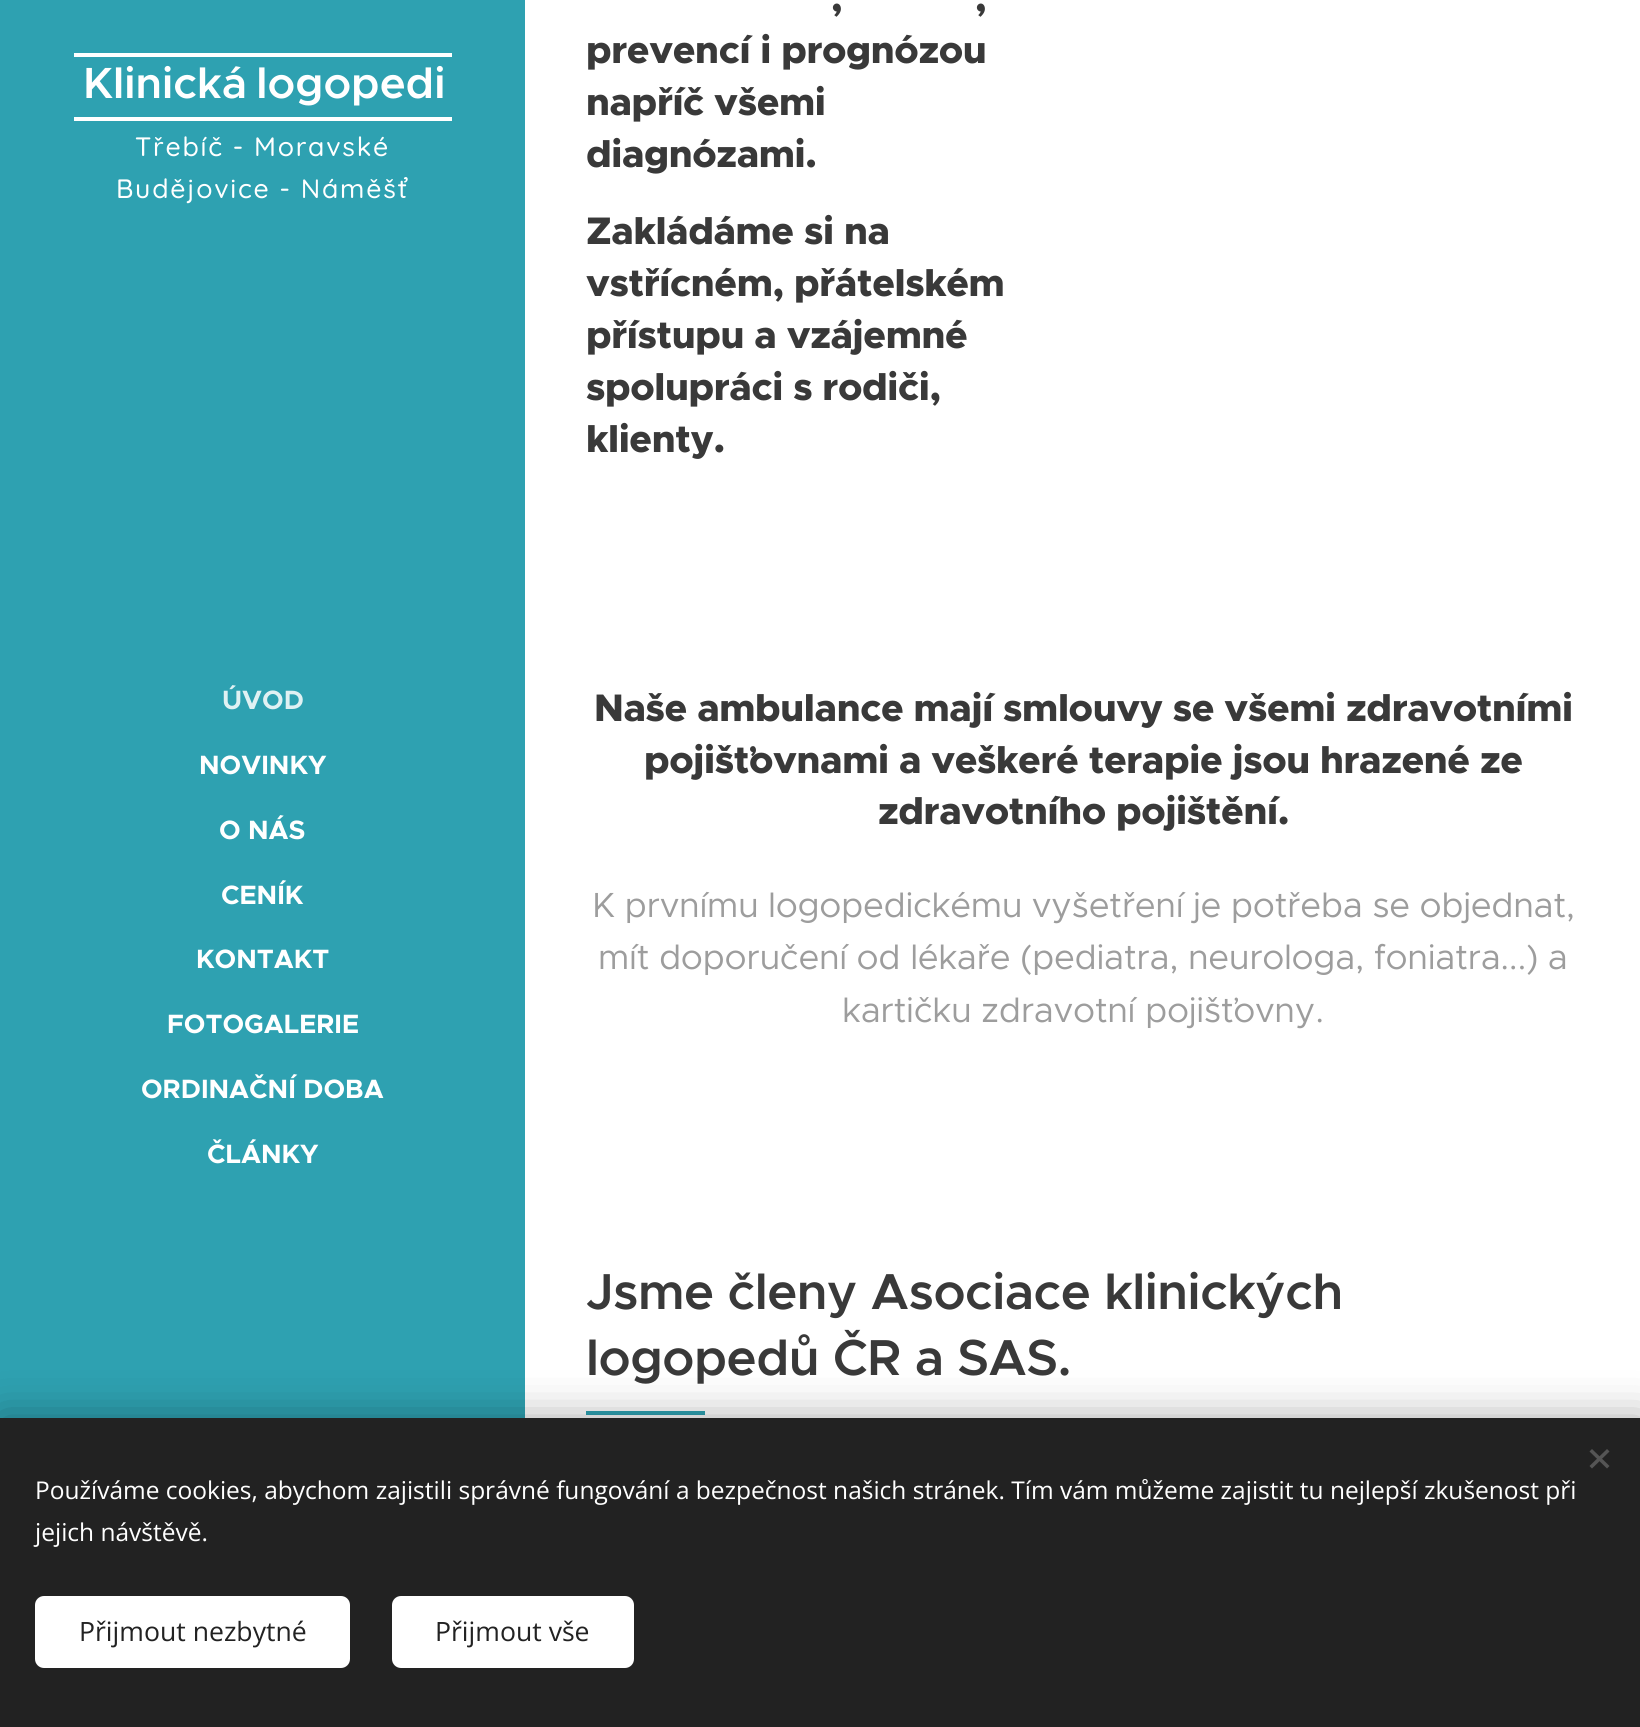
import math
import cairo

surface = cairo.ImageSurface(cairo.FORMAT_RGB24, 1640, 1727)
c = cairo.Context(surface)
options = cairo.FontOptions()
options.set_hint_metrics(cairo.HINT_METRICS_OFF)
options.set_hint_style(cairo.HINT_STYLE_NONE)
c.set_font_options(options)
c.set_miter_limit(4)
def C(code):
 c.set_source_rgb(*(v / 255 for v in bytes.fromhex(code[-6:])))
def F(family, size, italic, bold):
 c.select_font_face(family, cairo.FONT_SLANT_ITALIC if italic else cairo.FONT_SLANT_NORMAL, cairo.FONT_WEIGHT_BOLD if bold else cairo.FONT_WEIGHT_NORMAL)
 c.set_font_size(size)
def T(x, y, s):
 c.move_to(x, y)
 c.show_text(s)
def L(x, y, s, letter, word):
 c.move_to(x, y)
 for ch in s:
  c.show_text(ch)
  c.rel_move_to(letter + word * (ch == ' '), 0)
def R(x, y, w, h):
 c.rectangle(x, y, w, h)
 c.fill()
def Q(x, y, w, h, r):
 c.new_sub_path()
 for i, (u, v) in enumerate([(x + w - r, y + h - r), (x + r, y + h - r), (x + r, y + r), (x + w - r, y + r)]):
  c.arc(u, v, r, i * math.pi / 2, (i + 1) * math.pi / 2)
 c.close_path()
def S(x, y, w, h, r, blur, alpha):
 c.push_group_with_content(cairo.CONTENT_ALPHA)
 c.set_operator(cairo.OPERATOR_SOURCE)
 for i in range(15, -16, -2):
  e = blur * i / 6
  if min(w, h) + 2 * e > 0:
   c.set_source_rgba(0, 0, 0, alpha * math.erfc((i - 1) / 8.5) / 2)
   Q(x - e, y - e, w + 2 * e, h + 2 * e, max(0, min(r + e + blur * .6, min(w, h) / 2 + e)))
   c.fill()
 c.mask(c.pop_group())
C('ffffff')
c.paint()
C('2ea1b1')
R(0,0,525,1418)
C('ffffff')
R(74,53,378,4)
R(74,117,378,4)
F('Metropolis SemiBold',43.75,0,0)
L(83,98,'Klinická logopedi',0,-3)
F('Quicksand Medium',26.6,0,0)
L(135,156,'Třebíč - Moravské',1.75,0)
L(116,198,'Budějovice - Náměšť',1.75,0)
F('Metropolis',26.6,0,1)
C('e0f1f3')
T(222,709,'ÚVOD')
C('ffffff')
T(199,774,'NOVINKY')
T(219,839,'O NÁS')
T(221,904,'CENÍK')
T(196,968,'KONTAKT')
T(167,1033,'FOTOGALERIE')
T(141,1098,'ORDINAČNÍ DOBA')
T(207,1163,'ČLÁNKY')
F('Metropolis ExtraBold',38.5,0,0)
C('393939')
L(831,11,',',-.4,0)
L(975,11,',',-.4,0)
L(586,63,'prevencí i prognózou',-.4,0)
L(586,115,'napříč všemi',-.4,0)
L(586,167,'diagnózami.',-.4,0)
L(586,244,'Zakládáme si na',-.4,0)
L(586,296,'vstřícném, přátelském',-.4,0)
L(586,348,'přístupu a vzájemné',-.4,0)
L(586,400,'spolupráci s rodiči,',-.4,0)
L(586,452,'klienty.',-.4,0)
L(594,721,'Naše ambulance mají smlouvy se všemi zdravotními',-.4,0)
L(644,773,'pojišťovnami a veškeré terapie jsou hrazené ze',-.4,0)
L(878,824,'zdravotního pojištění.',-.4,0)
F('Metropolis',35,0,0)
C('9d9d9d')
L(592,917,'K prvnímu logopedickému vyšetření je potřeba se objednat,',-.35,0)
L(598,969,'mít doporučení od lékaře (pediatra, neurologa, foniatra...) a',-.35,0)
L(842,1022,'kartičku zdravotní pojišťovny.',-.35,0)
F('Metropolis SemiBold',50.75,0,0)
C('393939')
L(586,1309,'Jsme členy Asociace klinických',-.5,0)
L(586,1375,'logopedů ČR a SAS.',-.5,0)
C('2ea1b1')
R(586,1411,119,4)
C('000000')
S(0,1418,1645,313,0,22,.33)
C('222222')
R(0,1418,1640,309)
C('555555')
c.new_path()
c.move_to(1589.5,1466)
c.line_to(1607,1449)
c.line_to(1609.5,1451.5)
c.line_to(1592,1468.5)
c.close_path()
c.fill()
c.new_path()
c.move_to(1592,1449)
c.line_to(1609.5,1466)
c.line_to(1607,1468.5)
c.line_to(1589.5,1451.5)
c.close_path()
c.fill()
F('Open Sans',24.5,0,0)
C('ffffff')
T(35,1499,'Používáme cookies, abychom zajistili správné fungování a bezpečnost našich stránek. Tím vám můžeme zajistit tu nejlepší zkušenost při')
T(35,1541,'jejich návštěvě.')
Q(35,1596,315,72,9)
c.fill()
F('Open Sans',26.6,0,0)
C('222222')
T(79,1641,'Přijmout nezbytné')
C('ffffff')
Q(392,1596,242,72,9)
c.fill()
C('222222')
T(435,1641,'Přijmout vše')
surface.write_to_png('o.png')
